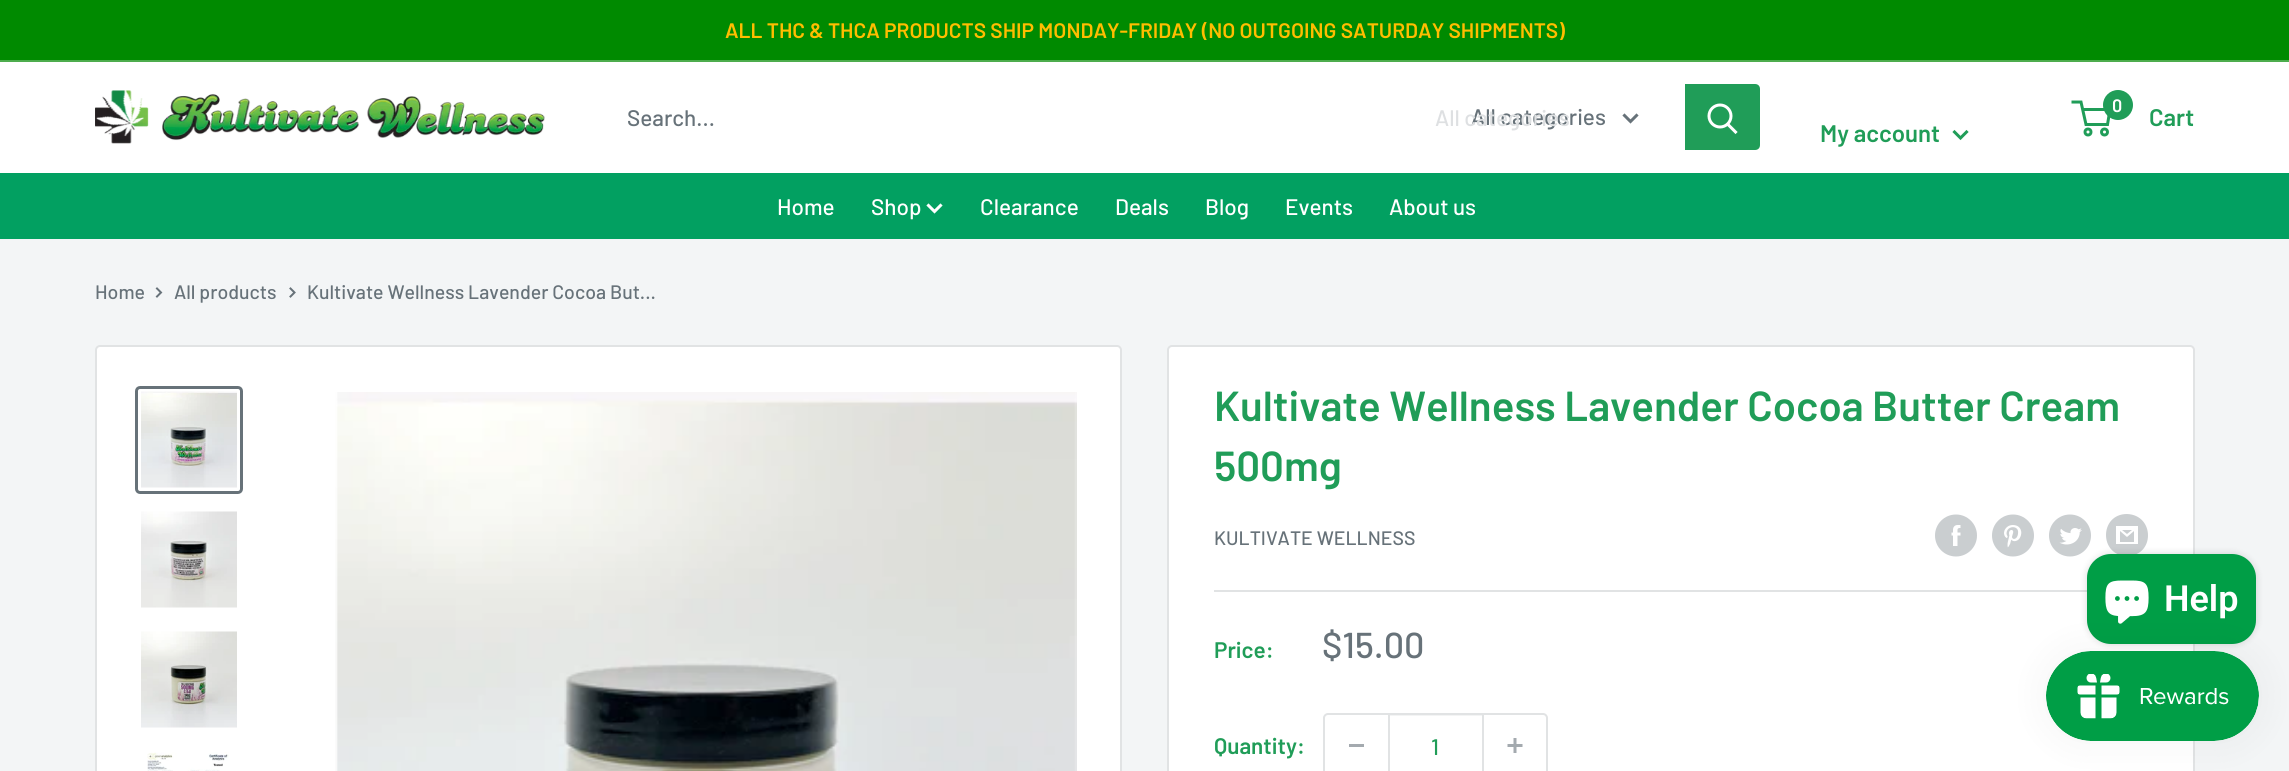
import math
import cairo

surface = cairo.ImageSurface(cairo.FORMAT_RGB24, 2289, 771)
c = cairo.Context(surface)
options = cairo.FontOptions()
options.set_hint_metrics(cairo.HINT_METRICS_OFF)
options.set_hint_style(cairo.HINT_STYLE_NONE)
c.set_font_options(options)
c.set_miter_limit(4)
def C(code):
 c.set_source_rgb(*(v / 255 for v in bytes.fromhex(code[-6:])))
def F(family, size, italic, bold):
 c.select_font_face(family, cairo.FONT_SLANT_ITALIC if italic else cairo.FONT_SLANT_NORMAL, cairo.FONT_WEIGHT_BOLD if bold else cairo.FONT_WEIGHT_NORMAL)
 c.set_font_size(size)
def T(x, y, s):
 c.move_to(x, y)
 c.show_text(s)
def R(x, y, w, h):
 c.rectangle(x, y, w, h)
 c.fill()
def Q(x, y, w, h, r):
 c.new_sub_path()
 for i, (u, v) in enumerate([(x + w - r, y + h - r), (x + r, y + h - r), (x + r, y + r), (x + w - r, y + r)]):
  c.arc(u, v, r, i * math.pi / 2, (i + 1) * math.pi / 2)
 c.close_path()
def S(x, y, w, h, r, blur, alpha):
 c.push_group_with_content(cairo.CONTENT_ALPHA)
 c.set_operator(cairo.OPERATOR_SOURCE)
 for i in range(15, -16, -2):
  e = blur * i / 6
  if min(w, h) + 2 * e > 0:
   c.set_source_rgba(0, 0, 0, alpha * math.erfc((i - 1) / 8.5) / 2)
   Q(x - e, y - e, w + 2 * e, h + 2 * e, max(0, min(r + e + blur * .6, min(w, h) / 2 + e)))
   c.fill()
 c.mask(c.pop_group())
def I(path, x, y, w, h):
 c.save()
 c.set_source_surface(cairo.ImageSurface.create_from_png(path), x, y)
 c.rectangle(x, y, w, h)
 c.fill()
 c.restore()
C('f3f5f6')
c.paint()
C('008a00')
R(0,0,2289,60)
C('4dad4d')
R(0,60,2289,2)
F('Barlow SemiBold',21,0,0)
C('ffbd00')
T(725,38,'ALL THC & THCA PRODUCTS SHIP MONDAY-FRIDAY (NO OUTGOING SATURDAY SHIPMENTS)')
C('ffffff')
R(0,62,2289,111)
I('1.png',95,90,450,54)
F('Barlow Medium',22.5,0,0)
C('677279')
T(627,126,'Search...')
T(1471,125,'All categories')
c.new_path()
c.move_to(1636.5,115.5)
c.line_to(1630.5,121.5)
c.line_to(1624.5,115.5)
c.set_line_width(3)
c.set_line_cap(cairo.LINE_CAP_SQUARE)
c.stroke()
C('dee0e2')
T(1435,126,'All categories')
C('209d58')
c.new_path()
c.move_to(1685,84)
c.line_to(1755,84)
c.curve_to(1758,84,1760,86,1760,89)
c.line_to(1760,145)
c.curve_to(1760,148,1758,150,1755,150)
c.line_to(1685,150)
c.close_path()
c.fill()
c.new_path()
c.move_to(1735.5,132)
c.line_to(1728,124.5)
C('ffffff')
c.stroke()
c.arc(1720,116,11,0,2 * math.pi)
c.set_line_cap(cairo.LINE_CAP_BUTT)
c.stroke()
c.arc(2088,132,3,0,2 * math.pi)
C('209d58')
c.stroke()
c.arc(2104.5,132,3,0,2 * math.pi)
c.stroke()
c.new_path()
c.move_to(2082.5,109.5)
c.line_to(2110,109.5)
c.line_to(2107.5,124.5)
c.line_to(2086,124.5)
c.line_to(2081,102)
c.line_to(2071.5,102)
c.stroke()
c.arc(2118,105,15,0,2 * math.pi)
c.fill()
F('Barlow SemiBold',18,0,0)
C('ffffff')
T(2112,112,'0')
F('Barlow SemiBold',24,0,0)
C('209d58')
T(2149,126,'Cart')
T(1820,142,'My account')
c.new_path()
c.move_to(1966.5,132)
c.line_to(1960.5,138)
c.line_to(1954.5,132)
c.set_line_cap(cairo.LINE_CAP_SQUARE)
c.stroke()
C('02a061')
R(0,173,2289,66)
F('Barlow Medium',22.5,0,0)
C('ffffff')
T(777,215,'Home')
T(871,215,'Shop')
c.new_path()
c.move_to(940.5,205.5)
c.line_to(934.5,211.5)
c.line_to(928.5,205.5)
c.stroke()
T(980,215,'Clearance')
T(1115,215,'Deals')
T(1205,215,'Blog')
T(1285,215,'Events')
T(1389,215,'About us')
F('Barlow Medium',19.5,0,0)
C('677279')
T(95,299,'Home')
c.new_path()
c.move_to(157,288.5)
c.line_to(161,292.5)
c.line_to(157,296.5)
c.set_line_width(2)
c.stroke()
T(174,299,'All products')
c.new_path()
c.move_to(290.5,288.5)
c.line_to(294.5,292.5)
c.line_to(290.5,296.5)
c.stroke()
T(307,299,'Kultivate Wellness Lavender Cocoa But...')
C('ffffff')
Q(96,346,1025,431,4)
c.fill_preserve()
C('e1e3e4')
c.set_line_cap(cairo.LINE_CAP_BUTT)
c.stroke()
Q(136.5,387.5,105,105,3.5)
C('677279')
c.set_line_width(3)
c.stroke()
I('2.png',141,391,96,97)
I('3.png',141,511,96,97)
I('4.png',141,631,96,97)
I('5.png',147,752,82,19)
I('6.png',335,392,742,379)
C('ffffff')
Q(1168,346,1026,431,4)
c.fill_preserve()
C('e1e3e4')
c.set_line_width(2)
c.stroke()
F('Barlow SemiBold',42,0,0)
C('209d58')
T(1214,421,'Kultivate Wellness Lavender Cocoa Butter Cream')
T(1214,481,'500mg')
F('Barlow Medium',19.5,0,0)
C('677279')
T(1214,545,'KULTIVATE WELLNESS')
I('7.png',1935,514,42,43)
I('8.png',1992,514,42,43)
I('9.png',2049,514,42,43)
C('caced0')
c.new_path()
c.move_to(2127,556)
c.curve_to(2099,556,2099,514,2127,514)
c.curve_to(2155,515,2155,556,2127,556)
c.close_path()
c.move_to(2122,530)
c.line_to(2132,530)
c.line_to(2127,534)
c.close_path()
c.move_to(2134,531)
c.line_to(2134,542)
c.line_to(2120,542)
c.line_to(2120,531)
c.line_to(2127,537)
c.close_path()
c.move_to(2138,526)
c.line_to(2116,526)
c.line_to(2116,544)
c.line_to(2138,544)
c.close_path()
c.fill()
C('e1e3e4')
R(1214,590,873,2)
F('Barlow SemiBold',22.5,0,0)
C('209d58')
T(1214,658,'Price:')
F('Barlow Medium',36,0,0)
C('677279')
T(1322,658,'$15.00')
F('Barlow SemiBold',22.5,0,0)
C('209d58')
T(1214,754,'Quantity:')
Q(1324,714,223,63,4)
C('e1e3e4')
c.stroke()
C('a4aaaf')
R(1349,744,15,3)
c.set_source_rgba(0.882,0.89,0.894,0.4)
R(1389,715,93,1)
C('e1e3e4')
R(1482,714,2,57)
R(1388,714,2,57)
F('Barlow Medium',22.5,0,0)
C('209d58')
T(1431,755,'1')
I('10.png',1507,738,16,15)
C('000000')
S(2087,554,169,90,24,4,.15)
C('009e46')
Q(2087,554,169,90,24)
c.fill()
I('11.png',2105,580,44,44)
F('Roboto SemiBold',36,0,0)
C('ffffff')
T(2164,611,'Help')
C('000000')
S(2046,651,213,90,45,19,.05)
I('12.png',2046,651,213,90)
surface.write_to_png('o.png')
